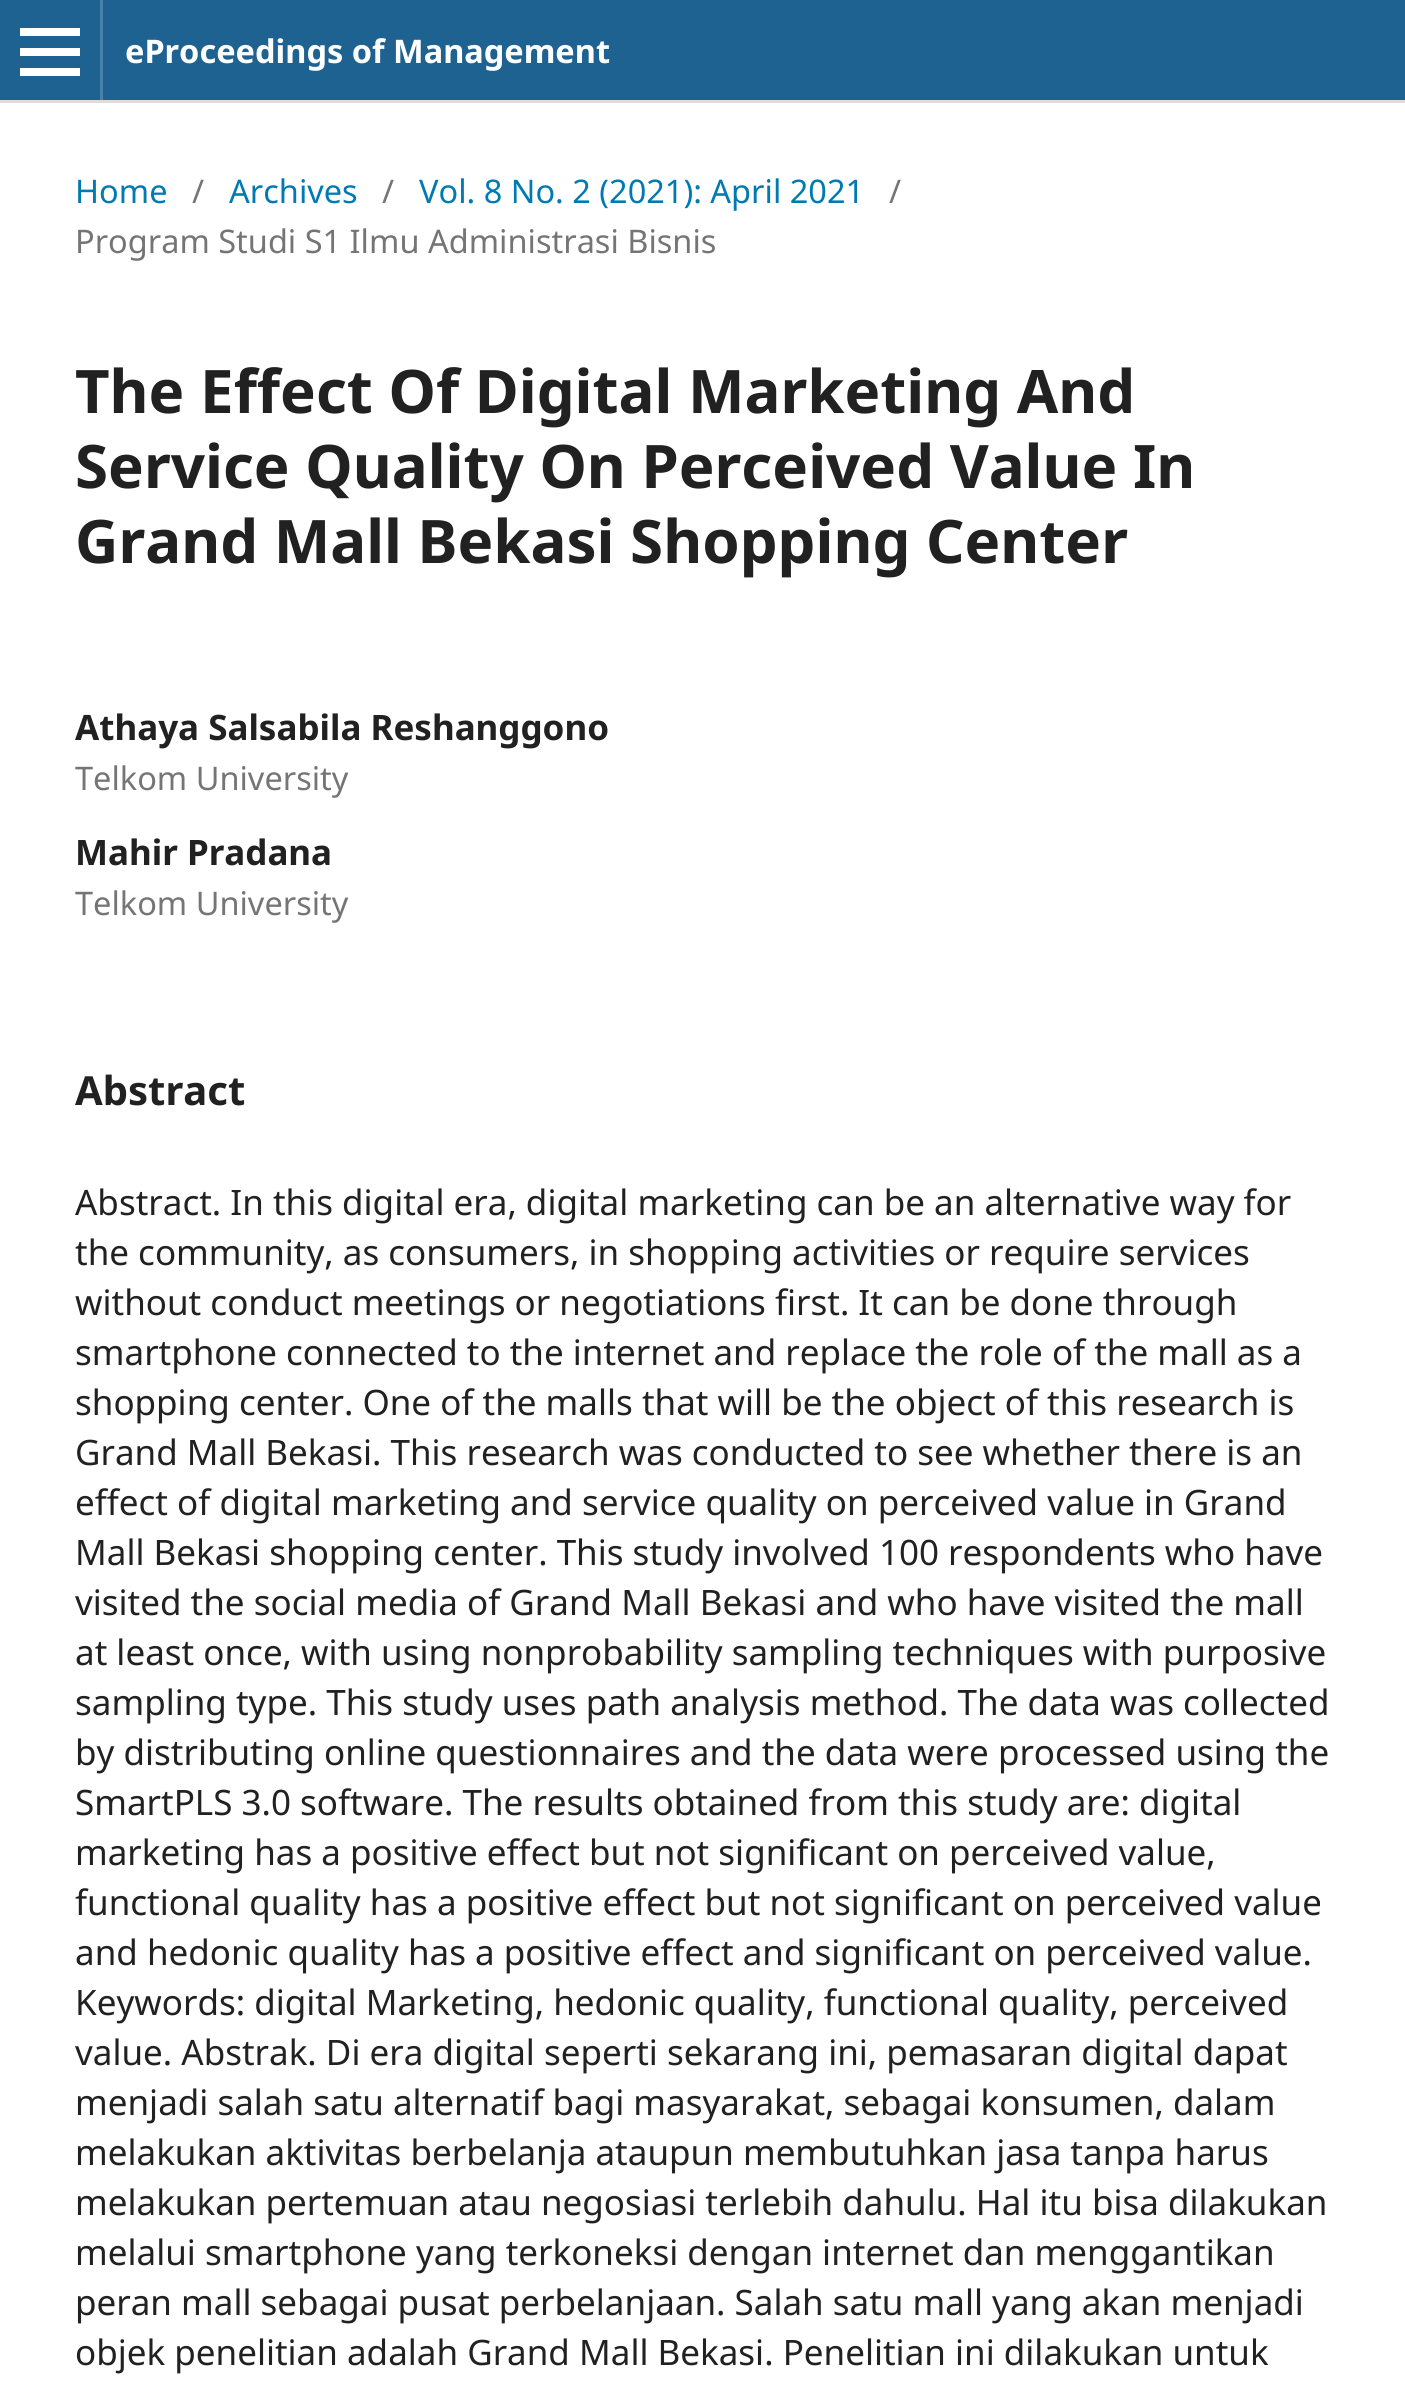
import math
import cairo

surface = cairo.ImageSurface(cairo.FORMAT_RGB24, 1405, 2394)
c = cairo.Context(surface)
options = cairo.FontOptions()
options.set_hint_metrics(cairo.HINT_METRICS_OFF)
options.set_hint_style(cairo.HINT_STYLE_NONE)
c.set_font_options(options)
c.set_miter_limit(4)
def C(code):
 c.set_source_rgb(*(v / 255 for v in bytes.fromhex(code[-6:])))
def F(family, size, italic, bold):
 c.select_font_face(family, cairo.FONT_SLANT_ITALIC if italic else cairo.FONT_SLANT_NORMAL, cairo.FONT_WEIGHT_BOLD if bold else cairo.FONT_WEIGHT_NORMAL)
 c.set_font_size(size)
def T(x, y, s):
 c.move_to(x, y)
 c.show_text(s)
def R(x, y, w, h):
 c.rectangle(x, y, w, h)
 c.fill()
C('ffffff')
c.paint()
C('1e6292')
R(0,0,1405,100)
C('dddddd')
R(0,100,1405,3)
C('4b81a8')
R(100,0,3,100)
C('ffffff')
R(20,68,60,8)
R(20,28,60,8)
R(20,48,60,8)
F('Noto Sans',32.5,0,1)
T(125,63,'eProceedings of Management')
F('Noto Sans',32.5,0,0)
C('007ab2')
T(75,203,'Home')
C('757575')
T(192,203,'/')
C('007ab2')
T(229,203,'Archives')
C('757575')
T(382,203,'/')
C('007ab2')
T(419,203,'Vol. 8 No. 2 (2021): April 2021')
C('757575')
T(889,203,'/')
T(75,253,'Program Studi S1 Ilmu Administrasi Bisnis')
F('Noto Sans',60,0,1)
C('212121')
T(75,413,'The Effect Of Digital Marketing And')
T(75,488,'Service Quality On Perceived Value In')
T(75,563,'Grand Mall Bekasi Shopping Center')
F('Noto Sans',35,0,1)
T(75,740,'Athaya Salsabila Reshanggono')
F('Noto Sans',32.5,0,0)
C('757575')
T(75,790,'Telkom University')
F('Noto Sans',35,0,1)
C('212121')
T(75,865,'Mahir Pradana')
F('Noto Sans',32.5,0,0)
C('757575')
T(75,915,'Telkom University')
F('Noto Sans',40,0,1)
C('212121')
T(75,1105,'Abstract')
F('Noto Sans',35,0,0)
T(75,1215,'Abstract. In this digital era, digital marketing can be an alternative way for')
T(75,1265,'the community, as consumers, in shopping activities or require services')
T(75,1315,'without conduct meetings or negotiations first. It can be done through')
T(75,1365,'smartphone connected to the internet and replace the role of the mall as a')
T(75,1415,'shopping center. One of the malls that will be the object of this research is')
T(75,1465,'Grand Mall Bekasi. This research was conducted to see whether there is an')
T(75,1515,'effect of digital marketing and service quality on perceived value in Grand')
T(75,1565,'Mall Bekasi shopping center. This study involved 100 respondents who have')
T(75,1615,'visited the social media of Grand Mall Bekasi and who have visited the mall')
T(75,1665,'at least once, with using nonprobability sampling techniques with purposive')
T(75,1715,'sampling type. This study uses path analysis method. The data was collected')
T(75,1765,'by distributing online questionnaires and the data were processed using the')
T(75,1815,'SmartPLS 3.0 software. The results obtained from this study are: digital')
T(75,1865,'marketing has a positive effect but not significant on perceived value,')
T(75,1915,'functional quality has a positive effect but not significant on perceived value')
T(75,1965,'and hedonic quality has a positive effect and significant on perceived value.')
T(75,2015,'Keywords: digital Marketing, hedonic quality, functional quality, perceived')
T(75,2065,'value. Abstrak. Di era digital seperti sekarang ini, pemasaran digital dapat')
T(75,2115,'menjadi salah satu alternatif bagi masyarakat, sebagai konsumen, dalam')
T(75,2165,'melakukan aktivitas berbelanja ataupun membutuhkan jasa tanpa harus')
T(75,2215,'melakukan pertemuan atau negosiasi terlebih dahulu. Hal itu bisa dilakukan')
T(75,2265,'melalui smartphone yang terkoneksi dengan internet dan menggantikan')
T(75,2315,'peran mall sebagai pusat perbelanjaan. Salah satu mall yang akan menjadi')
T(75,2365,'objek penelitian adalah Grand Mall Bekasi. Penelitian ini dilakukan untuk')
surface.write_to_png('o.png')
